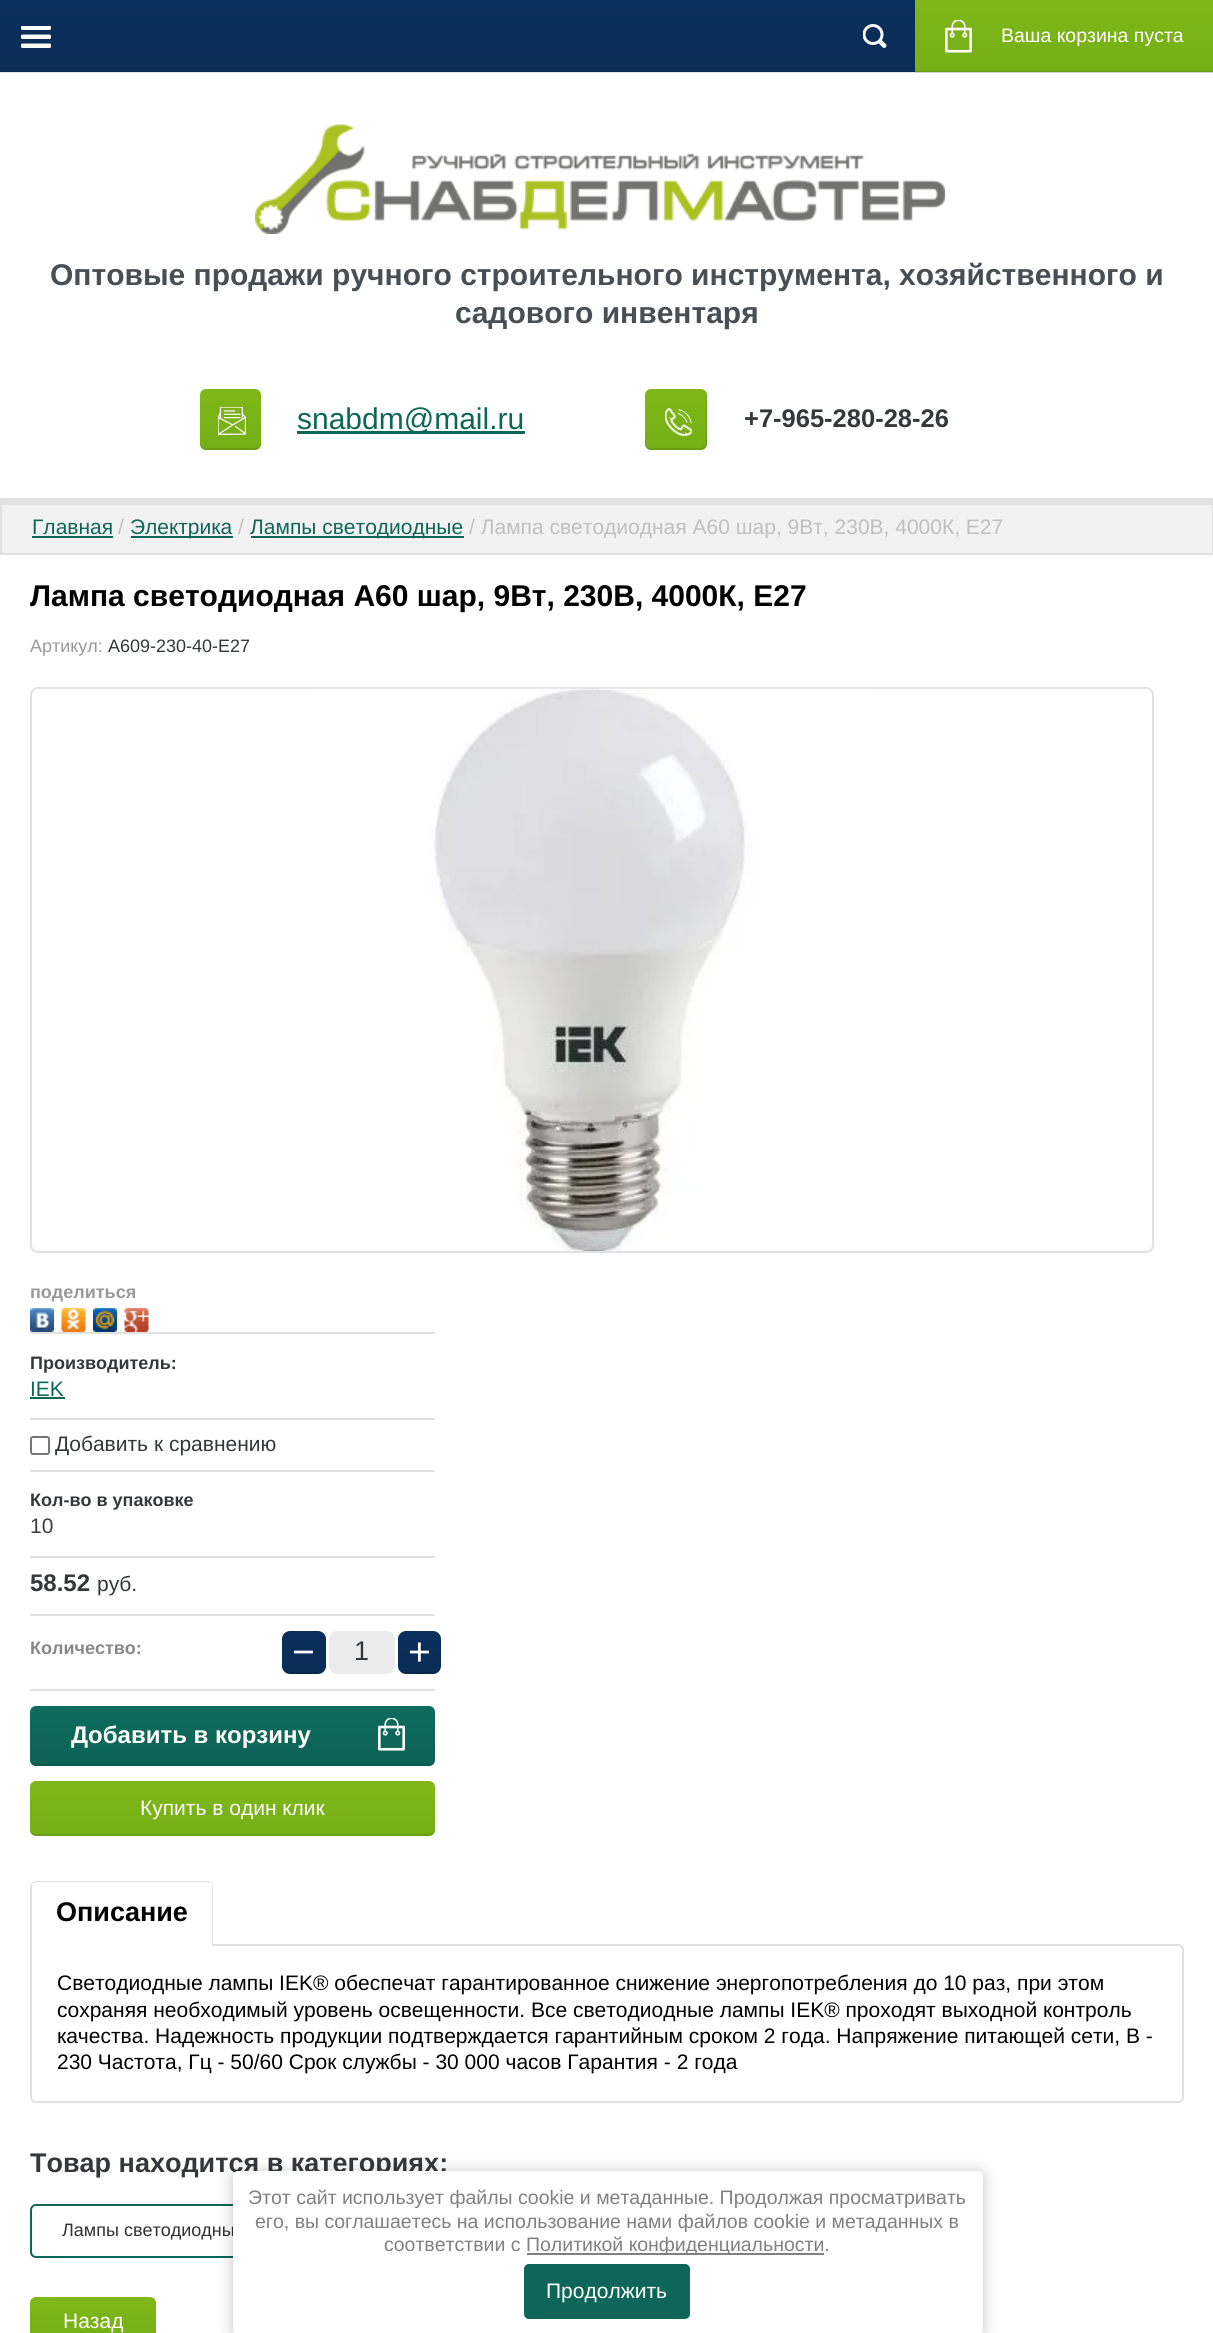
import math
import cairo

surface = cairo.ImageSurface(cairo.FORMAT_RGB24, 1213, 2333)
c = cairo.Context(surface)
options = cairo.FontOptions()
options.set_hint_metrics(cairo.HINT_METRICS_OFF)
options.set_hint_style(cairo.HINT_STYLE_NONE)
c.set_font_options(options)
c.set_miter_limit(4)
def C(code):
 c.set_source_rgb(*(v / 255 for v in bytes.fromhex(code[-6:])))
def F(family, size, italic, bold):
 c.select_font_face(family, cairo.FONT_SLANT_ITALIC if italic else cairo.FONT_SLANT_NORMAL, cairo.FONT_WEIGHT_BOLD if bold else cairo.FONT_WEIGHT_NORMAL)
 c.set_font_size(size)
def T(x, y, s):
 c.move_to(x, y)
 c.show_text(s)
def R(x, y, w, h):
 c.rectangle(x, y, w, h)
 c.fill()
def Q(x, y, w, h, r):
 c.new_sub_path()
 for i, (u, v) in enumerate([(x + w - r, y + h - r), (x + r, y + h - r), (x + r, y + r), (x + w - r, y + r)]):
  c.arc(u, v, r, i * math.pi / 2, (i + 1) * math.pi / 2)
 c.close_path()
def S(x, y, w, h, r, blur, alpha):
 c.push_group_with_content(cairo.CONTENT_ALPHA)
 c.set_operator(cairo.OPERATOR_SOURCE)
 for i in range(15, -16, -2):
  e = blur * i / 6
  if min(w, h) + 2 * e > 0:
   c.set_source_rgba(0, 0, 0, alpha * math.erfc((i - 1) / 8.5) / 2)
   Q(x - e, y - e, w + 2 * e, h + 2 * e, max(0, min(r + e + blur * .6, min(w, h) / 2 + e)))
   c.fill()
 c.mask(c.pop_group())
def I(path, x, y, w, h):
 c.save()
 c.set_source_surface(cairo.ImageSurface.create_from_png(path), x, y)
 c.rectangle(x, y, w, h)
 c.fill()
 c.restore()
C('ffffff')
c.paint()
C('e6e6e6')
R(0,72,915,1)
C('cfcfcf')
R(915,72,298,1)
gradient = cairo.LinearGradient(607,72,607,0)
gradient.add_color_stop_rgba(0,0.039,0.173,0.333,1)
gradient.add_color_stop_rgba(1,0.047,0.188,0.365,1)
c.set_source(gradient)
R(0,0,915,71)
I('1.png',21,26,30,22)
gradient = cairo.LinearGradient(607,72,607,0)
gradient.add_color_stop_rgba(0,0.035,0.157,0.302,1)
gradient.add_color_stop_rgba(1,0.043,0.169,0.329,1)
c.set_source(gradient)
R(0,71,915,1)
I('2.png',863,24,24,24)
gradient = cairo.LinearGradient(1064,72,1064,0)
gradient.add_color_stop_rgba(0,0.455,0.686,0.086,1)
gradient.add_color_stop_rgba(1,0.502,0.718,0.094,1)
c.set_source(gradient)
R(915,0,298,71)
gradient = cairo.LinearGradient(1064,72,1064,0)
gradient.add_color_stop_rgba(0,0.408,0.62,0.078,1)
gradient.add_color_stop_rgba(1,0.451,0.647,0.086,1)
c.set_source(gradient)
R(915,71,298,1)
I('3.png',945,20,27,33)
F('Liberation Sans',19.5,0,0)
C('ffffff')
T(1001,42,'Ваша корзина пуста')
I('4.png',255,124,690,110)
F('Liberation Sans',30,0,1)
C('474f54')
T(50,285,'Оптовые продажи ручного строительного инструмента, хозяйственного и')
T(455,323,'садового инвентаря')
gradient = cairo.LinearGradient(230,450,230,389)
gradient.add_color_stop_rgba(0,0.455,0.686,0.086,1)
gradient.add_color_stop_rgba(1,0.502,0.718,0.094,1)
c.set_source(gradient)
Q(200,389,61,61,6)
c.fill()
c.set_source_rgba(0,0,0,0.1)
c.new_path()
c.move_to(200,442)
c.curve_to(200,452,206,450,214,450)
c.line_to(247,450)
c.curve_to(255,450,261,452,261,442)
c.curve_to(261,446,258,448,255,448)
c.line_to(206,448)
c.curve_to(202,448,200,446,200,442)
c.close_path()
c.fill()
I('5.png',218,407,28,28)
C('0d6759')
R(297,431,228,3)
F('Liberation Sans',30,0,0)
T(297,429,'snabdm@mail.ru')
gradient = cairo.LinearGradient(676,450,676,389)
gradient.add_color_stop_rgba(0,0.455,0.686,0.086,1)
gradient.add_color_stop_rgba(1,0.502,0.718,0.094,1)
c.set_source(gradient)
Q(645,389,62,61,6)
c.fill()
c.set_source_rgba(0,0,0,0.1)
c.new_path()
c.move_to(645,442)
c.curve_to(645,452,651,450,659,450)
c.line_to(676,450)
c.curve_to(712,450,707,456,707,420)
c.line_to(707,403)
c.curve_to(707,400,708,394,706,391)
c.line_to(706,442)
c.curve_to(706,450,697,448,692,448)
c.line_to(659,448)
c.curve_to(654,448,645,450,645,442)
c.close_path()
c.fill()
I('6.png',665,408,27,29)
F('Liberation Sans',25.5,0,1)
C('34383a')
T(744,427,'+7-965-280-28-26')
C('f2f2f2')
R(2,505,1210,48)
C('e3e3e3')
R(2,500,1210,5)
c.rectangle(1,499,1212,55)
C('e1e1e1')
c.stroke()
F('Liberation Sans',21,0,0)
C('0d6759')
T(32,534,'Главная')
R(32,536,81,2)
C('c0c0c0')
T(118,534,'/')
C('0d6759')
R(131,536,102,2)
T(130,534,'Электрика')
C('c0c0c0')
T(238,534,'/')
C('0d6759')
R(251,536,213,2)
T(250,534,'Лампы светодиодные')
C('c0c0c0')
T(469,534,'/ Лампа светодиодная A60 шар, 9Вт, 230В, 4000К, E27')
F('Liberation Sans',30,0,1)
C('000000')
T(30,606,'Лампа светодиодная A60 шар, 9Вт, 230В, 4000К, E27')
F('Liberation Sans',18,0,0)
C('999999')
T(30,652,'Артикул:')
C('34383a')
T(108,652,'A609-230-40-E27')
Q(31,688,1122,564,7)
C('e1e1e1')
c.stroke()
I('7.png',311,688,562,563)
F('Liberation Sans',18,0,1)
C('999999')
T(30,1298,'поделиться')
I('8.png',30,1308,24,24)
I('9.png',61,1308,25,24)
I('10.png',93,1308,24,24)
I('11.png',124,1308,25,24)
C('e1e1e1')
R(30,1332,405,2)
C('34383a')
T(30,1369,'Производитель:')
F('Liberation Sans',21,0,0)
C('0d6759')
T(30,1396,'IEK')
R(30,1397,35,2)
C('dedede')
R(30,1418,405,2)
Q(31,1437,18,17,2)
C('767676')
c.stroke()
C('34383a')
T(55,1451,'Добавить к сравнению')
C('e1e1e1')
R(30,1470,405,2)
F('Liberation Sans',18,0,1)
C('34383a')
T(30,1506,'Кол-во в упаковке')
F('Liberation Sans',21,0,0)
C('3e3e3e')
T(30,1533,'10')
C('e1e1e1')
R(30,1556,405,2)
F('Liberation Sans',24,0,1)
C('34383a')
T(30,1591,'58.52')
F('Liberation Sans',21,0,0)
T(97,1591,'руб.')
C('e1e1e1')
R(30,1614,405,2)
R(30,1689,405,2)
F('Liberation Sans',18,0,1)
C('888888')
T(30,1654,'Количество:')
gradient = cairo.LinearGradient(304,1674,304,1631)
gradient.add_color_stop_rgba(0,0.039,0.173,0.333,1)
gradient.add_color_stop_rgba(1,0.047,0.188,0.365,1)
c.set_source(gradient)
Q(282,1631,44,43,8)
c.fill()
c.set_source_rgba(0,0,0,0.1)
c.new_path()
c.move_to(282,1665)
c.curve_to(282,1673,288,1674,295,1674)
c.line_to(313,1674)
c.curve_to(320,1674,326,1673,326,1665)
c.curve_to(326,1669,322,1672,318,1672)
c.line_to(290,1672)
c.curve_to(285,1672,282,1669,282,1665)
c.close_path()
c.fill()
F('Liberation Sans',39,0,0)
C('ffffff')
T(292,1665,'−')
C('ececec')
Q(329,1631,66,43,8)
c.fill()
F('Liberation Sans',27,0,0)
C('34383a')
T(354,1660,'1')
gradient = cairo.LinearGradient(419,1674,419,1631)
gradient.add_color_stop_rgba(0,0.039,0.173,0.333,1)
gradient.add_color_stop_rgba(1,0.047,0.188,0.365,1)
c.set_source(gradient)
Q(398,1631,43,43,8)
c.fill()
c.set_source_rgba(0,0,0,0.1)
c.new_path()
c.move_to(398,1665)
c.curve_to(398,1677,411,1674,420,1674)
c.curve_to(428,1674,441,1677,441,1665)
c.curve_to(441,1669,438,1672,434,1672)
c.line_to(405,1672)
c.curve_to(401,1672,398,1669,398,1665)
c.close_path()
c.fill()
F('Liberation Sans',39,0,0)
C('ffffff')
T(408,1665,'+')
gradient = cairo.LinearGradient(233,1766,233,1706)
gradient.add_color_stop_rgba(0,0.047,0.384,0.333,1)
gradient.add_color_stop_rgba(1,0.055,0.424,0.365,1)
c.set_source(gradient)
Q(30,1706,405,60,6)
c.fill()
c.set_source_rgba(0,0,0,0.1)
c.new_path()
c.move_to(30,1758)
c.curve_to(30,1762,31,1766,36,1766)
c.line_to(429,1766)
c.curve_to(434,1766,435,1762,435,1758)
c.curve_to(435,1761,432,1764,429,1764)
c.line_to(36,1764)
c.curve_to(33,1764,30,1761,30,1758)
c.close_path()
c.fill()
F('Liberation Sans',24,0,1)
C('ffffff')
T(71,1743,'Добавить в корзину')
I('12.png',378,1718,27,33)
gradient = cairo.LinearGradient(233,1836,233,1781)
gradient.add_color_stop_rgba(0,0.455,0.686,0.086,1)
gradient.add_color_stop_rgba(1,0.502,0.718,0.094,1)
c.set_source(gradient)
Q(30,1781,405,55,6)
c.fill()
c.set_source_rgba(0,0,0,0.1)
c.new_path()
c.move_to(30,1828)
c.curve_to(30,1832,31,1836,36,1836)
c.line_to(429,1836)
c.curve_to(434,1836,435,1832,435,1828)
c.curve_to(435,1832,432,1834,429,1834)
c.line_to(36,1834)
c.curve_to(33,1834,30,1832,30,1828)
c.close_path()
c.fill()
F('Liberation Sans',21,0,0)
C('ffffff')
T(140,1815,'Купить в один клик')
c.new_path()
c.move_to(31,1945)
c.line_to(1178,1945)
c.curve_to(1181,1945,1183,1947,1183,1950)
c.line_to(1183,2097)
c.curve_to(1183,2100,1181,2102,1178,2102)
c.line_to(36,2102)
c.curve_to(33,2102,31,2100,31,2097)
c.close_path()
C('e1e1e1')
c.stroke()
C('ffffff')
c.new_path()
c.move_to(36,1881)
c.line_to(207,1881)
c.curve_to(210.5,1881,213,1883.5,213,1887)
c.line_to(213,1946)
c.line_to(30,1946)
c.line_to(30,1887)
c.curve_to(30,1883.5,32.5,1881,36,1881)
c.close_path()
c.fill()
C('e1e1e1')
c.set_fill_rule(cairo.FILL_RULE_EVEN_ODD)
c.new_path()
c.move_to(36,1881)
c.line_to(207,1881)
c.curve_to(210,1881,213,1884,213,1887)
c.line_to(213,1946)
c.line_to(30,1946)
c.line_to(30,1887)
c.curve_to(30,1884,33,1881,36,1881)
c.close_path()
c.move_to(36,1882)
c.line_to(207,1882)
c.curve_to(209,1882,212,1885,212,1887)
c.line_to(212,1946)
c.line_to(32,1946)
c.line_to(32,1887)
c.curve_to(32,1885,34,1882,36,1882)
c.close_path()
c.fill()
C('ffffff')
R(32,1883,180,4)
F('Liberation Sans',27,0,1)
C('000000')
T(56,1921,'Описание')
F('Liberation Sans',21,0,0)
T(57,1990,'Светодиодные лампы IEK® обеспечат гарантированное снижение энергопотребления до 10 раз, при этом')
T(57,2017,'сохраняя необходимый уровень освещенности. Все светодиодные лампы IEK® проходят выходной контроль')
T(57,2043,'качества. Надежность продукции подтверждается гарантийным сроком 2 года. Напряжение питающей сети, В -')
T(57,2069,'230 Частота, Гц - 50/60 Срок службы - 30 000 часов Гарантия - 2 года')
F('Liberation Sans',27,0,1)
C('34383a')
T(30,2172,'Товар находится в категориях:')
Q(31,2205,244,52,5)
C('0d6759')
c.stroke()
F('Liberation Sans',18,0,0)
C('303030')
T(62,2236,'Лампы светодиодны')
C('000000')
S(233,2172,750,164,5,7.5,.23)
C('ffffff')
Q(233,2171,750,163,5)
c.fill()
F('Liberation Sans',19.5,0,0)
C('808080')
T(248,2204,'Этот сайт использует файлы cookie и метаданные. Продолжая просматривать')
T(255,2228,'его, вы соглашаетесь на использование нами файлов cookie и метаданных в')
T(384,2251,'соответствии с')
R(527,2253,297,2)
T(526,2251,'Политикой конфиденциальности.')
C('0d6658')
Q(524,2264,166,55,5)
c.fill()
F('Liberation Sans',21,0,0)
C('ffffff')
T(546,2298,'Продолжить')
gradient = cairo.LinearGradient(93,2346,93,2297)
gradient.add_color_stop_rgba(0,0.455,0.686,0.086,1)
gradient.add_color_stop_rgba(1,0.502,0.718,0.094,1)
c.set_source(gradient)
Q(30,2297,126,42,6)
c.fill()
C('ffffff')
T(63,2328,'Назад')
surface.write_to_png('o.png')
